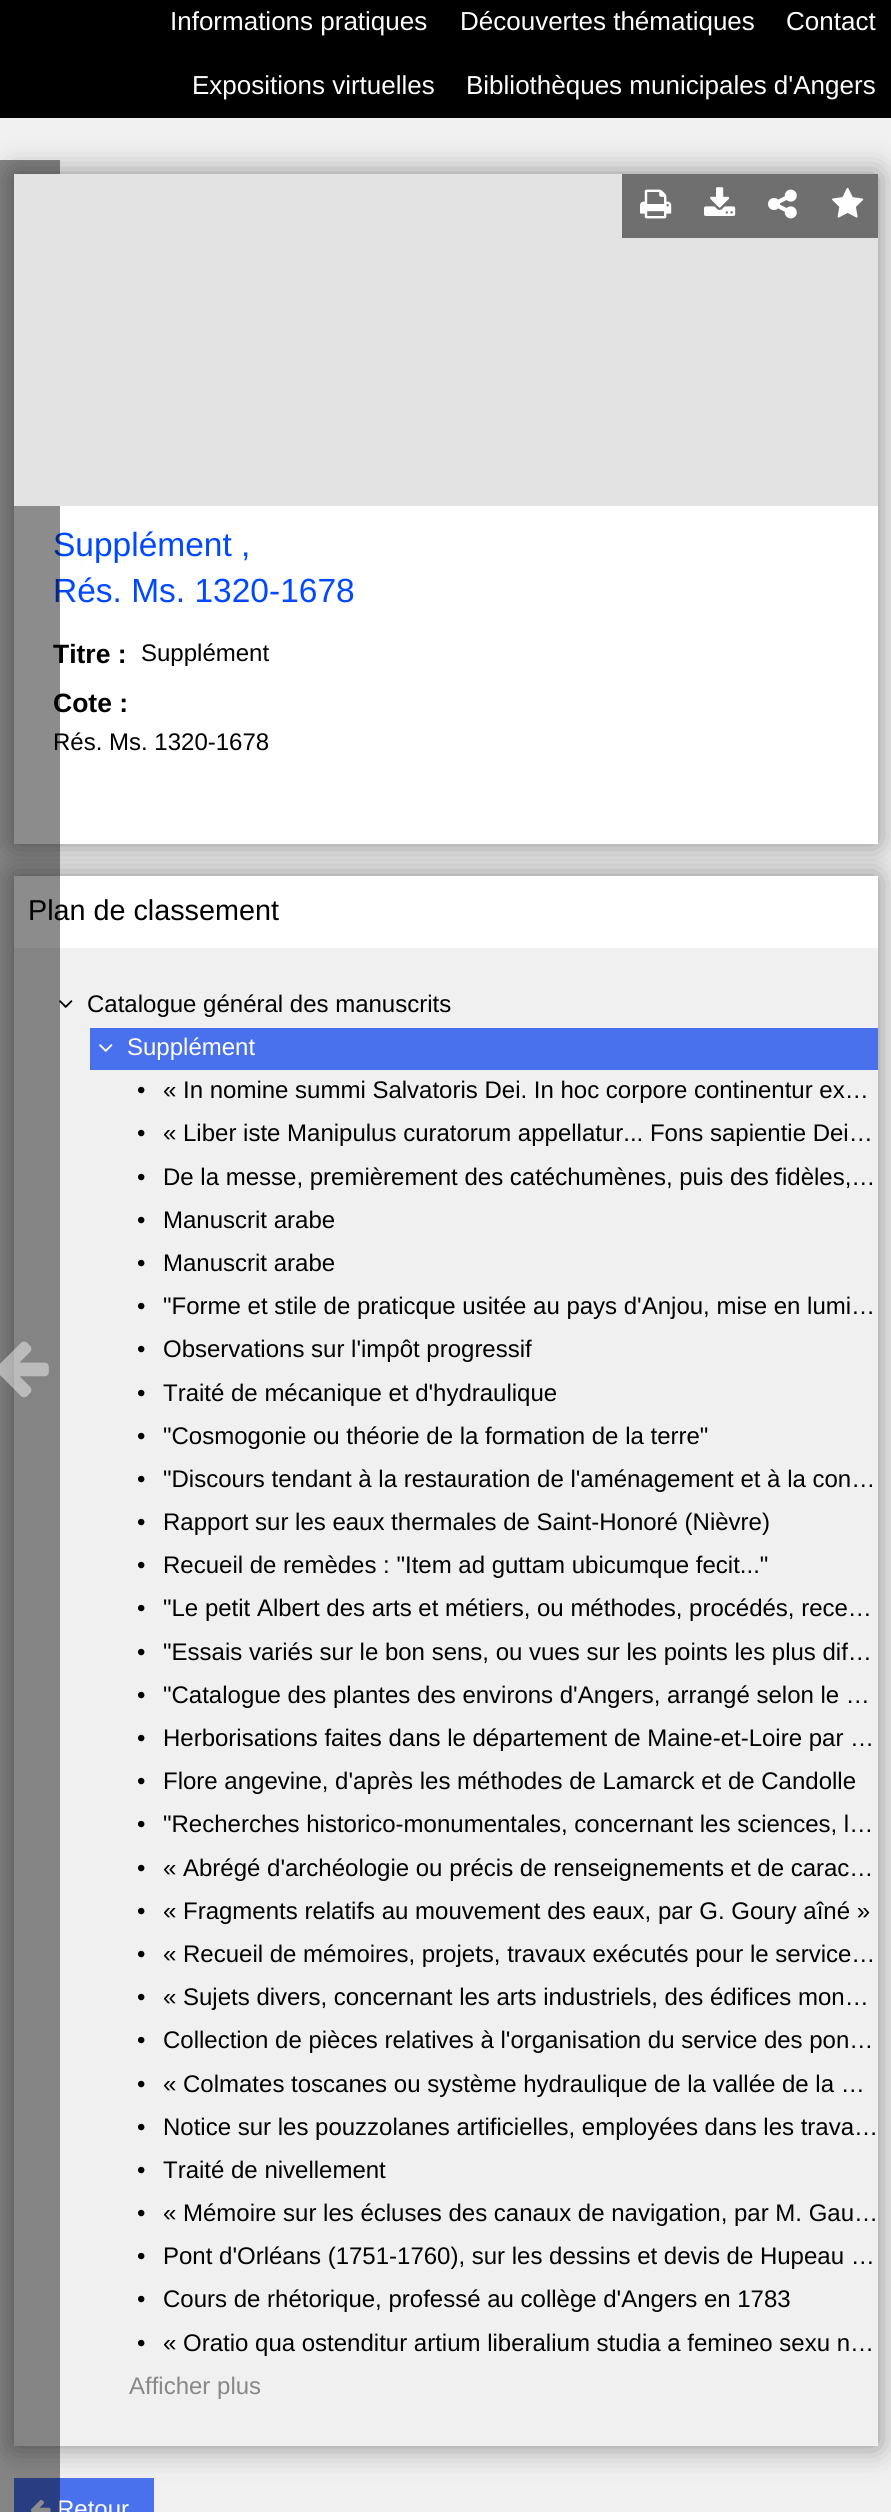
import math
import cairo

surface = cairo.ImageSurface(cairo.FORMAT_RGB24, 891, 2512)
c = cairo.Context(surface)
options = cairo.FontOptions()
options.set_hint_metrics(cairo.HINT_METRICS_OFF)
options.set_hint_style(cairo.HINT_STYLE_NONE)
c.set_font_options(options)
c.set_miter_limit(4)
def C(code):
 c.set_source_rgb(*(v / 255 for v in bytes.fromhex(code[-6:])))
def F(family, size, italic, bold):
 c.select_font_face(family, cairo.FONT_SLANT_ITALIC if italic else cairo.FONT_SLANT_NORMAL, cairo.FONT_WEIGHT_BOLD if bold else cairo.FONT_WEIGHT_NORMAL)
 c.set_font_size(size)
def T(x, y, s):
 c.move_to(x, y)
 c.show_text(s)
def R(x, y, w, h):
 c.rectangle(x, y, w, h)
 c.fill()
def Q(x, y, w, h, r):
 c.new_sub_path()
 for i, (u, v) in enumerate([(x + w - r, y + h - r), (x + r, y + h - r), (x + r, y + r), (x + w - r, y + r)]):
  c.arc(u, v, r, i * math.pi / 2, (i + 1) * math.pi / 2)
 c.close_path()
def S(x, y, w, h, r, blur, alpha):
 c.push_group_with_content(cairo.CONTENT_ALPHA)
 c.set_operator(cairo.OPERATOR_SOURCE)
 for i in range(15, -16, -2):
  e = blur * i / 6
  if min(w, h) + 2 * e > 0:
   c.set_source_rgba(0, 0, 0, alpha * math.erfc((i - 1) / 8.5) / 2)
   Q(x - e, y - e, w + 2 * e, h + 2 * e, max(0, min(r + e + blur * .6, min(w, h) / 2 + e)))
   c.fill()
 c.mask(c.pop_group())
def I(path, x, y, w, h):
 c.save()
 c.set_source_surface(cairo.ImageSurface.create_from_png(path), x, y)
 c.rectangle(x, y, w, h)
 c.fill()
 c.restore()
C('f0f0f0')
c.paint()
C('000000')
R(0,0,891,118)
F('Liberation Sans',26,0,0)
C('ffffff')
T(170,30,'Informations pratiques')
T(460,30,'Découvertes thématiques')
T(786,30,'Contact')
T(192,94,'Expositions virtuelles')
T(466,94,'Bibliothèques municipales d\'Angers')
C('4a71ed')
R(14,2478,140,34)
c.save()
c.set_fill_rule(cairo.FILL_RULE_EVEN_ODD)
c.new_path()
c.move_to(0,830)
c.line_to(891,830)
c.line_to(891,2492)
c.line_to(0,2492)
c.close_path()
c.move_to(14,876)
c.line_to(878,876)
c.line_to(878,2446)
c.line_to(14,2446)
c.close_path()
c.clip()
C('888888')
S(14,876,864,1570,0,15,1)
c.restore()
C('ffffff')
R(14,876,864,72)
C('888888')
S(14,174,864,670,0,15,1)
C('ffffff')
R(14,506,864,338)
F('Liberation Sans',33.5,0,0)
C('0049ff')
T(53,556,'Supplément ,')
T(53,602,'Rés. Ms. 1320-1678')
F('Liberation Sans',26.5,0,1)
C('000000')
T(53,663,'Titre :')
T(53,712,'Cote :')
F('Liberation Sans',24,0,0)
T(53,750,'Rés. Ms. 1320-1678')
F('Liberation Sans',28.75,0,0)
T(28,920,'Plan de classement')
I('6.png',59,1000,14,8)
I('8.png',30,2499,21,13)
F('Liberation Sans',24,0,0)
C('ffffff')
T(57,2517,'Retour')
c.set_source_rgba(0,0,0,0.45)
R(0,160,60,2352)
I('1.png',0,1341,49,57)
C('e3e3e3')
R(14,174,864,332)
C('6f6f6f')
R(622,174,128,64)
I('2.png',640,189,32,30)
R(750,174,128,64)
I('3.png',832,187,32,31)
I('4.png',704,187,32,29)
I('5.png',768,189,29,30)
C('000000')
T(141,661,'Supplément')
T(87,1012,'Catalogue général des manuscrits')
C('4a71ed')
R(90,1028,788,42)
I('7.png',99,1044,14,8)
C('ffffff')
T(127,1055,'Supplément')
C('000000')
T(137,1098,'•')
T(163,1098,'« In nomine summi Salvatoris Dei. In hoc corpore continentur ex…')
T(137,1141,'•')
T(163,1141,'« Liber iste Manipulus curatorum appellatur... Fons sapientie Dei…')
T(137,1185,'•')
T(163,1185,'De la messe, premièrement des catéchumènes, puis des fidèles,…')
T(137,1228,'•')
T(163,1228,'Manuscrit arabe')
T(137,1271,'•')
T(163,1271,'Manuscrit arabe')
T(137,1314,'•')
T(163,1314,'"Forme et stile de praticque usitée au pays d\'Anjou, mise en lumi…')
T(137,1357,'•')
T(163,1357,'Observations sur l\'impôt progressif')
T(137,1401,'•')
T(163,1401,'Traité de mécanique et d\'hydraulique')
T(137,1444,'•')
T(163,1444,'"Cosmogonie ou théorie de la formation de la terre"')
T(137,1487,'•')
T(163,1487,'"Discours tendant à la restauration de l\'aménagement et à la con…')
T(137,1530,'•')
T(163,1530,'Rapport sur les eaux thermales de Saint-Honoré (Nièvre)')
T(137,1573,'•')
T(163,1573,'Recueil de remèdes : "Item ad guttam ubicumque fecit..."')
T(137,1616,'•')
T(163,1616,'"Le petit Albert des arts et métiers, ou méthodes, procédés, rece…')
T(137,1660,'•')
T(163,1660,'"Essais variés sur le bon sens, ou vues sur les points les plus dif…')
T(137,1703,'•')
T(163,1703,'"Catalogue des plantes des environs d\'Angers, arrangé selon le …')
T(137,1746,'•')
T(163,1746,'Herborisations faites dans le département de Maine-et-Loire par …')
T(137,1789,'•')
T(163,1789,'Flore angevine, d\'après les méthodes de Lamarck et de Candolle')
T(137,1832,'•')
T(163,1832,'"Recherches historico-monumentales, concernant les sciences, l…')
T(137,1876,'•')
T(163,1876,'« Abrégé d\'archéologie ou précis de renseignements et de carac…')
T(137,1919,'•')
T(163,1919,'« Fragments relatifs au mouvement des eaux, par G. Goury aîné »')
T(137,1962,'•')
T(163,1962,'« Recueil de mémoires, projets, travaux exécutés pour le service…')
T(137,2005,'•')
T(163,2005,'« Sujets divers, concernant les arts industriels, des édifices mon…')
T(137,2048,'•')
T(163,2048,'Collection de pièces relatives à l\'organisation du service des pon…')
T(137,2092,'•')
T(163,2092,'« Colmates toscanes ou système hydraulique de la vallée de la …')
T(137,2135,'•')
T(163,2135,'Notice sur les pouzzolanes artificielles, employées dans les trava…')
T(137,2178,'•')
T(163,2178,'Traité de nivellement')
T(137,2221,'•')
T(163,2221,'« Mémoire sur les écluses des canaux de navigation, par M. Gau…')
T(137,2264,'•')
T(163,2264,'Pont d\'Orléans (1751-1760), sur les dessins et devis de Hupeau …')
T(137,2307,'•')
T(163,2307,'Cours de rhétorique, professé au collège d\'Angers en 1783')
T(137,2351,'•')
T(163,2351,'« Oratio qua ostenditur artium liberalium studia a femineo sexu n…')
C('888888')
T(129,2394,'Afficher plus')
surface.write_to_png('o.png')
